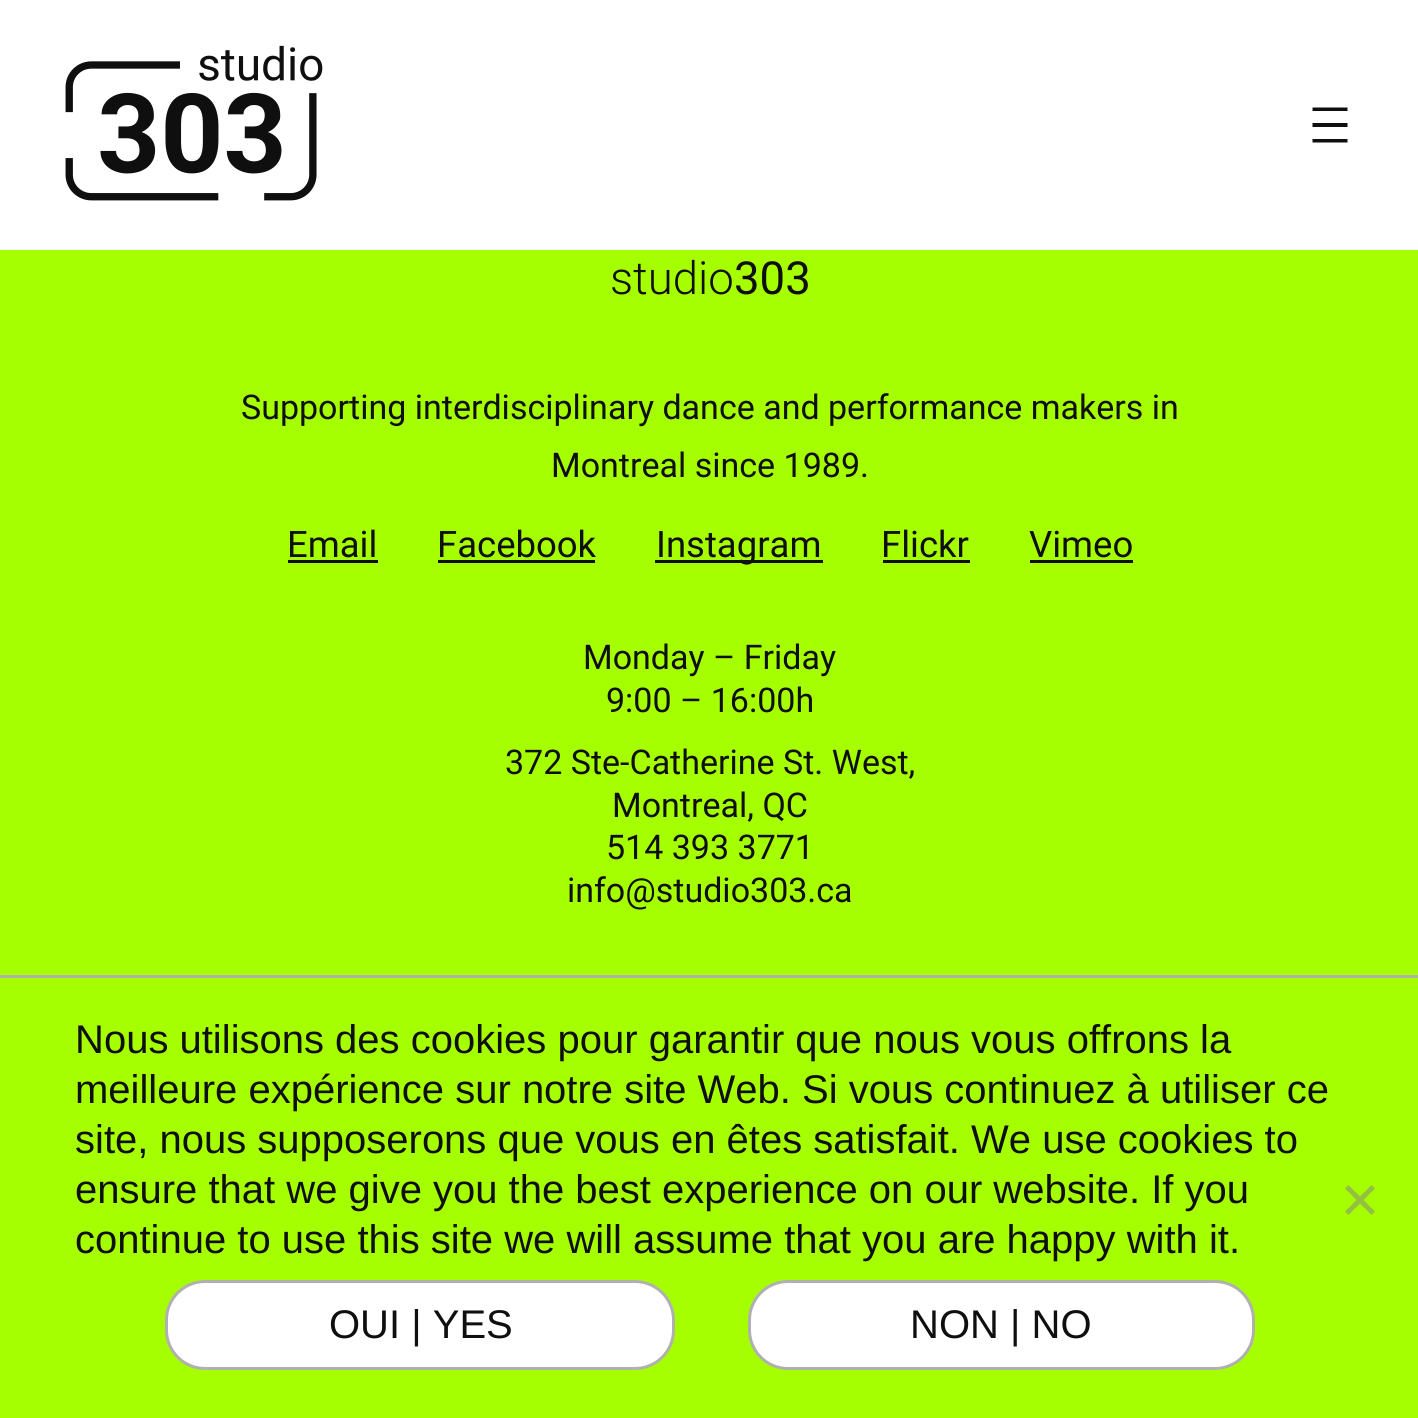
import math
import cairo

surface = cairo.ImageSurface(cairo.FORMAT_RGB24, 1418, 1418)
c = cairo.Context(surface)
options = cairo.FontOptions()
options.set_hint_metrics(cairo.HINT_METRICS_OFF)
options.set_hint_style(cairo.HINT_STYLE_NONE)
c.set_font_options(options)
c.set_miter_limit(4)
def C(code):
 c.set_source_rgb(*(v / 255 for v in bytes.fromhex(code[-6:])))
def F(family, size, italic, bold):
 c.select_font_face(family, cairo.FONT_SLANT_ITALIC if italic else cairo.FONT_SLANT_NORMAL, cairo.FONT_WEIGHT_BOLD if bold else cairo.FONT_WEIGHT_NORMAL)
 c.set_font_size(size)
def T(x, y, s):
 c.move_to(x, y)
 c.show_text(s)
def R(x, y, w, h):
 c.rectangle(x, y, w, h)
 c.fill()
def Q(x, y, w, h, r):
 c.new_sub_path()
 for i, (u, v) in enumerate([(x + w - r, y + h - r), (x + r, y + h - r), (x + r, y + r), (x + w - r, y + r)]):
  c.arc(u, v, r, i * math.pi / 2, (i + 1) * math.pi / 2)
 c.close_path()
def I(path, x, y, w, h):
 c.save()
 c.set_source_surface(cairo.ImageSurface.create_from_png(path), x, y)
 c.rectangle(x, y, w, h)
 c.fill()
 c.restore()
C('a6ff00')
c.paint()
C('ffffff')
R(0,0,1418,250)
I('1.png',65,45,258,156)
C('0f0f0f')
c.new_path()
c.move_to(1312.5,107.5)
c.line_to(1312.5,111)
c.line_to(1347.5,111)
c.line_to(1347.5,107.5)
c.close_path()
c.move_to(1312.5,127)
c.line_to(1347.5,127)
c.line_to(1347.5,123)
c.line_to(1312.5,123)
c.close_path()
c.move_to(1312.5,142.5)
c.line_to(1347.5,142.5)
c.line_to(1347.5,139)
c.line_to(1312.5,139)
c.close_path()
c.fill()
F('Roboto Light',45.5,0,0)
T(610,294,'studio')
F('Roboto',45.5,0,0)
T(734,294,'303')
F('Roboto',34,0,0)
T(241,419,'Supporting interdisciplinary dance and performance makers in')
T(551,477,'Montreal since 1989.')
F('Roboto',36.5,0,0)
T(287,557,'Email')
R(288,560,90,3)
T(437,557,'Facebook')
R(438,560,157,3)
R(655,560,168,3)
T(656,557,'Instagram')
T(881,557,'Flickr')
R(883,560,87,3)
T(1029,557,'Vimeo')
R(1030,560,103,3)
F('Roboto',34,0,0)
T(583,669,'Monday – Friday')
T(606,712,'9:00 – 16:00h')
T(505,774,'372 Ste-Catherine St. West,')
T(612,817,'Montreal, QC')
T(606,859,'514 393 3771')
T(567,902,'info@studio303.ca')
C('b0b0b0')
R(0,975,1418,3)
F('Liberation Sans',40,0,0)
C('0f0f0f')
T(75,1053,'Nous utilisons des cookies pour garantir que nous vous offrons la')
T(75,1103,'meilleure expérience sur notre site Web. Si vous continuez à utiliser ce')
T(75,1153,'site, nous supposerons que vous en êtes satisfait. We use cookies to')
T(75,1203,'ensure that we give you the best experience on our website. If you')
T(75,1253,'continue to use this site we will assume that you are happy with it.')
C('93c040')
c.new_path()
c.move_to(1371.5,1185)
c.line_to(1375,1188.5)
c.line_to(1348.5,1215)
c.line_to(1345,1211.5)
c.close_path()
c.fill()
c.new_path()
c.move_to(1345,1188.5)
c.line_to(1348.5,1185)
c.line_to(1375,1211.5)
c.line_to(1371.5,1215)
c.close_path()
c.fill()
C('ffffff')
Q(166.5,1281.5,507,87,38.5)
c.fill_preserve()
C('b0b0b0')
c.set_line_width(3)
c.stroke()
C('0f0f0f')
T(329,1338,'OUI | YES')
C('ffffff')
Q(749.5,1281.5,504,87,38.5)
c.fill_preserve()
C('b0b0b0')
c.stroke()
C('0f0f0f')
T(910,1338,'NON | NO')
surface.write_to_png('o.png')
